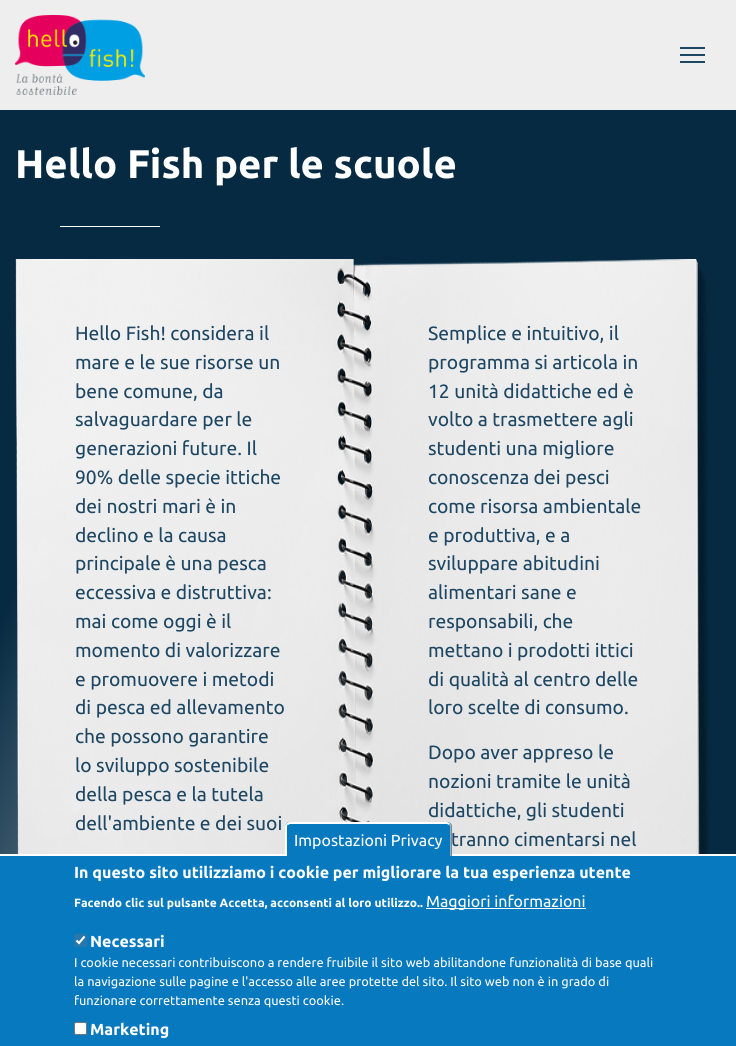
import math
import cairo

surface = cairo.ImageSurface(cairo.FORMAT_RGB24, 736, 1046)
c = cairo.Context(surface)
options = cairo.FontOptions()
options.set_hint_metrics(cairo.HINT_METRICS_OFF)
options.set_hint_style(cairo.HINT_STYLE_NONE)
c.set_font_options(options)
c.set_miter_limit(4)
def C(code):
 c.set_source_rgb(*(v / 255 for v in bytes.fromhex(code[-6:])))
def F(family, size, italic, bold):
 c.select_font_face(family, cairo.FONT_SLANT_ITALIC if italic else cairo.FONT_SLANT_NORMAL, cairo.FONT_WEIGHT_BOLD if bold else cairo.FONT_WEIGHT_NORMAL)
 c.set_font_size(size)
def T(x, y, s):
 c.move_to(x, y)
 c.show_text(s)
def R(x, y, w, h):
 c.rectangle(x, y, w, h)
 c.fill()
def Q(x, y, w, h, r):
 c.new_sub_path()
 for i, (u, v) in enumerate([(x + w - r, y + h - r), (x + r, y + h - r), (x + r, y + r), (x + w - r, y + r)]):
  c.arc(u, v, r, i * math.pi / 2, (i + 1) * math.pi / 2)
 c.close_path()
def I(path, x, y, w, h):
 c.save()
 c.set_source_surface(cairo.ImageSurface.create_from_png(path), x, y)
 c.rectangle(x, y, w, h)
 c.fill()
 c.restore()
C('ffffff')
c.paint()
gradient = cairo.RadialGradient(0,0,0,0,0,1)
gradient.set_matrix(cairo.Matrix(1 / 729, 0, 0, 1 / 2001, -1 * 221 / 729, -1 * 1415 / 2001))
gradient.add_color_stop_rgba(0,1,1,1,1)
gradient.add_color_stop_rgba(.5,0.024,0.165,0.259,1)
c.set_source(gradient)
R(0,110,736,744)
C('eeeeee')
R(0,0,736,110)
I('1.png',15,15,130,80)
C('1e4763')
R(680,47,25,2)
R(680,54,25,2)
R(680,61,25,2)
F('Ubuntu',40,0,1)
C('ffffff')
T(15,178,'Hello Fish per le scuole')
R(60,226,100,1)
I('2.png',15,259,695,595)
F('Ubuntu',19.25,0,0)
C('1e4763')
T(75,340,'Hello Fish! considera il')
T(75,369,'mare e le sue risorse un')
T(75,398,'bene comune, da')
T(75,426,'salvaguardare per le')
T(75,455,'generazioni future. Il')
T(75,484,'90% delle specie ittiche')
T(75,513,'dei nostri mari è in')
T(75,542,'declino e la causa')
T(75,570,'principale è una pesca')
T(75,599,'eccessiva e distruttiva:')
T(75,628,'mai come oggi è il')
T(75,657,'momento di valorizzare')
T(75,686,'e promuovere i metodi')
T(75,714,'di pesca ed allevamento')
T(75,743,'che possono garantire')
T(75,772,'lo sviluppo sostenibile')
T(75,801,'della pesca e la tutela')
T(75,830,'dell\'ambiente e dei suoi')
T(428,340,'Semplice e intuitivo, il')
T(428,369,'programma si articola in')
T(428,398,'12 unità didattiche ed è')
T(428,426,'volto a trasmettere agli')
T(428,455,'studenti una migliore')
T(428,484,'conoscenza dei pesci')
T(428,513,'come risorsa ambientale')
T(428,542,'e produttiva, e a')
T(428,570,'sviluppare abitudini')
T(428,599,'alimentari sane e')
T(428,628,'responsabili, che')
T(428,657,'mettano i prodotti ittici')
T(428,686,'di qualità al centro delle')
T(428,714,'loro scelte di consumo.')
T(428,759,'Dopo aver appreso le')
T(428,788,'nozioni tramite le unità')
T(428,817,'didattiche, gli studenti')
T(451,846,'tranno cimentarsi nel')
C('0779bf')
R(0,856,736,190)
c.new_path()
c.move_to(290,822)
c.line_to(447,822)
c.curve_to(450,822,452,824,452,827)
c.line_to(452,856)
c.line_to(285,856)
c.line_to(285,827)
c.curve_to(285,824,287,822,290,822)
c.close_path()
c.fill()
C('ffffff')
c.new_path()
c.move_to(290,822)
c.line_to(447,822)
c.line_to(450,823)
c.line_to(449,825)
c.line_to(447,824)
c.line_to(290,824)
c.line_to(288,825)
c.line_to(286,824)
c.curve_to(287,823,288,822,290,822)
c.close_path()
c.fill()
C('aaaaaa')
c.new_path()
c.move_to(449,825)
c.line_to(450.5,823.5)
c.line_to(451.5,825.5)
c.line_to(451.5,856)
c.line_to(450,856)
c.line_to(450,826.5)
c.close_path()
c.fill()
C('ffffff')
c.new_path()
c.move_to(285,856)
c.line_to(287,856)
c.line_to(287,827)
c.curve_to(287,826,287,825.5,287.5,825)
c.line_to(286,823.5)
c.curve_to(285.5,824.5,285,825.5,285,827)
c.close_path()
c.fill()
F('Ubuntu',16,0,0)
T(294,846,'Impostazioni Privacy')
F('Ubuntu',16,0,1)
T(74,878,'In questo sito utilizziamo i cookie per migliorare la tua esperienza utente')
F('Ubuntu',12,0,1)
T(74,907,'Facendo clic sul pulsante Accetta, acconsenti al loro utilizzo..')
R(426,908,160,1)
F('Ubuntu',16,0,0)
T(426,907,'Maggiori informazioni')
C('2878a9')
Q(74,934,13,13,2)
c.fill()
c.new_path()
c.move_to(76.5,940.5)
c.line_to(79,943)
c.line_to(84.5,936.5)
C('ffffff')
c.set_line_width(2.1)
c.stroke()
F('Ubuntu',16,0,1)
T(90,947,'Necessari')
F('Ubuntu',12.8,0,0)
T(74,967,'I cookie necessari contribuiscono a rendere fruibile il sito web abilitandone funzionalità di base quali')
T(74,986,'la navigazione sulle pagine e l\'accesso alle aree protette del sito. Il sito web non è in grado di')
T(74,1005,'funzionare correttamente senza questi cookie.')
Q(74.5,1022.5,12,12,1.5)
c.fill_preserve()
C('767676')
c.set_line_width(1)
c.stroke()
F('Ubuntu',16,0,1)
C('ffffff')
T(90,1035,'Marketing')
surface.write_to_png('o.png')
